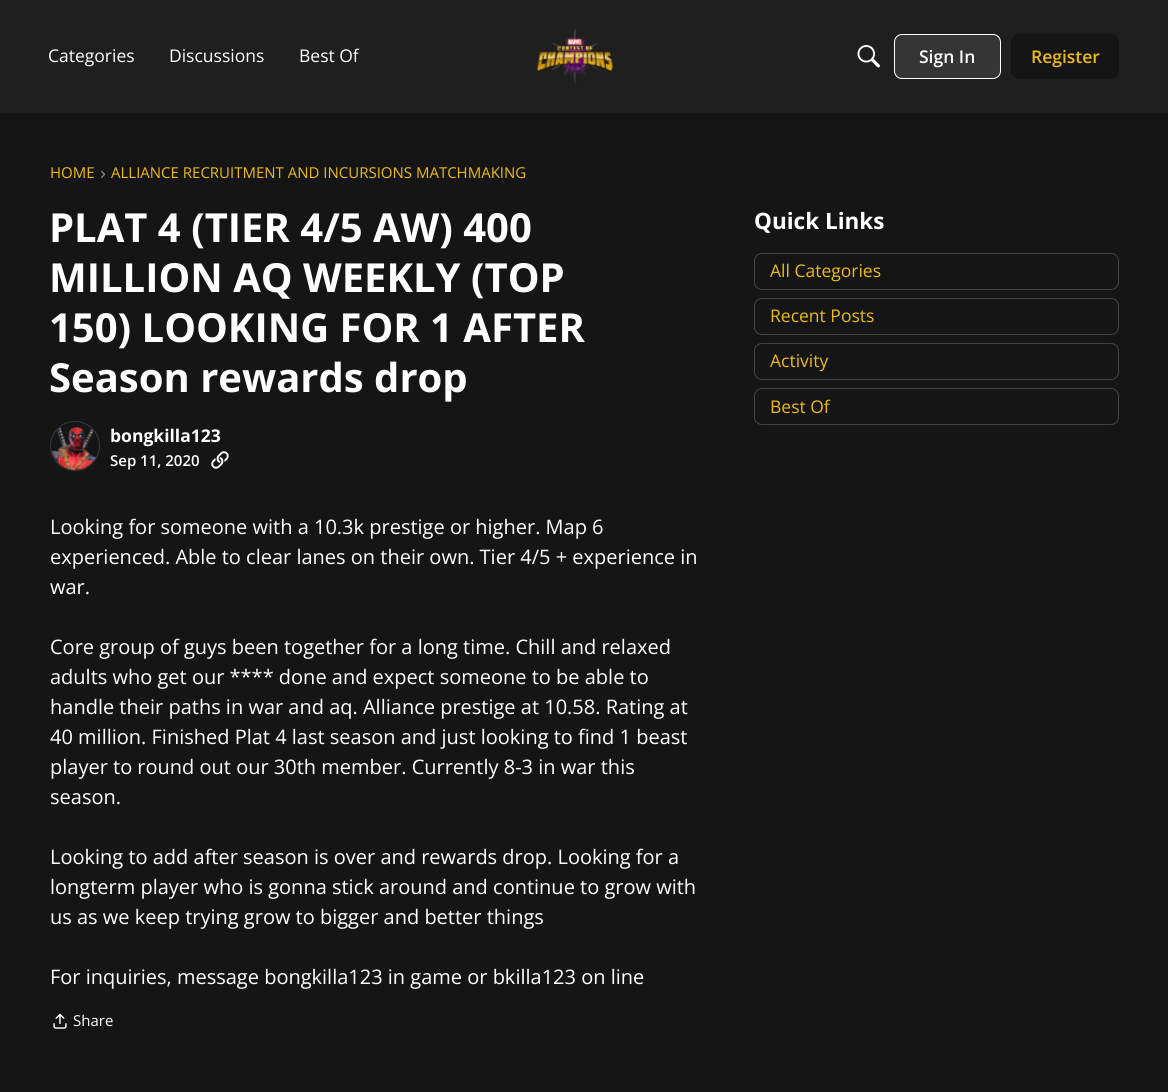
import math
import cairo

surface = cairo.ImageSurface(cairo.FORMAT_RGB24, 1168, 1092)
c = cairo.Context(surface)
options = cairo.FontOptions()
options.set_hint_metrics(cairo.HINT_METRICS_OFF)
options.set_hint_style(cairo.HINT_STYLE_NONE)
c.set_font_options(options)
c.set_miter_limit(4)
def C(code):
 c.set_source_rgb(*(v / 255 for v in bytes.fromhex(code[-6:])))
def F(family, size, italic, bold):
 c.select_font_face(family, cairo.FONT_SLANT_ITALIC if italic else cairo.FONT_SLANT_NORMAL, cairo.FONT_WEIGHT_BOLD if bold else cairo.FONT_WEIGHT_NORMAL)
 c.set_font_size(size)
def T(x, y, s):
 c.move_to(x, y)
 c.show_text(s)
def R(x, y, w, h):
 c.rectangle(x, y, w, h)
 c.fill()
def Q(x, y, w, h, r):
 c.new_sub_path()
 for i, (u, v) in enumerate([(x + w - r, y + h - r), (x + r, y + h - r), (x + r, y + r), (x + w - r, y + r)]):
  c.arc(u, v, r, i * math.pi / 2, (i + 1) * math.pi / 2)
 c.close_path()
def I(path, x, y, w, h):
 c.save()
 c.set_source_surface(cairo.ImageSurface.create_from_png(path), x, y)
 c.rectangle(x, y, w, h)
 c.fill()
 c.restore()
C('151515')
c.paint()
C('1f1f1f')
R(0,0,1168,113)
F('Open Sans',17.5,0,0)
C('ffffff')
T(48,62,'Categories')
T(169,62,'Discussions')
T(299,62,'Best Of')
I('1.png',536,28,77,56)
I('2.png',857,45,23,23)
C('353535')
Q(894.5,34.5,106,44,7.5)
c.fill_preserve()
C('ffffff')
c.set_line_width(1)
c.stroke()
F('Open Sans SemiBold',17.5,0,0)
T(919,63,'Sign In')
C('151515')
Q(1011,34,108,45,8)
c.fill()
C('eebc11')
T(1031,63,'Register')
F('Open Sans',15,0,0)
T(50,178,'HOME')
F('Liberation Sans',17.5,0,0)
C('8a8a8a')
T(100,179,'›')
F('Open Sans',15,0,0)
C('eebc11')
T(111,178,'ALLIANCE RECRUITMENT AND INCURSIONS MATCHMAKING')
F('Open Sans',40,0,1)
C('ffffff')
T(49,242,'PLAT 4 (TIER 4/5 AW) 400')
T(49,292,'MILLION AQ WEEKLY (TOP')
T(49,342,'150) LOOKING FOR 1 AFTER')
T(49,392,'Season rewards drop')
c.new_path()
c.arc(75,446,24.5,0,2 * math.pi)
C('383838')
c.stroke()
I('3.png',51,427,45,43)
F('Open Sans',17.5,0,1)
C('ffffff')
T(110,442,'bongkilla123')
F('Open Sans SemiBold',15,0,0)
T(110,466,'Sep 11, 2020')
I('4.png',211,451,18,18)
F('Open Sans',20,0,0)
T(50,534,'Looking for someone with a 10.3k prestige or higher. Map 6')
T(50,564,'experienced. Able to clear lanes on their own. Tier 4/5 + experience in')
T(50,594,'war.')
T(50,654,'Core group of guys been together for a long time. Chill and relaxed')
T(50,684,'adults who get our **** done and expect someone to be able to')
T(50,714,'handle their paths in war and aq. Alliance prestige at 10.58. Rating at')
T(50,744,'40 million. Finished Plat 4 last season and just looking to find 1 beast')
T(50,774,'player to round out our 30th member. Currently 8-3 in war this')
T(50,804,'season.')
T(50,864,'Looking to add after season is over and rewards drop. Looking for a')
T(50,894,'longterm player who is gonna stick around and continue to grow with')
T(50,924,'us as we keep trying grow to bigger and better things')
T(50,984,'For inquiries, message bongkilla123 in game or bkilla123 on line')
I('5.png',53,1013,14,16)
F('Open Sans',15,0,0)
T(73,1026,'Share')
F('Open Sans',22.5,0,1)
T(754,229,'Quick Links')
Q(754.5,253.5,364,36,7.5)
C('444444')
c.stroke()
F('Open Sans',17.5,0,0)
C('eebc11')
T(770,277,'All Categories')
Q(754.5,298.5,364,36,7.5)
C('444444')
c.stroke()
C('eebc11')
T(770,322,'Recent Posts')
Q(754.5,343.5,364,36,7.5)
C('444444')
c.stroke()
C('eebc11')
T(770,367,'Activity')
Q(754.5,388.5,364,36,7.5)
C('444444')
c.stroke()
C('eebc11')
T(770,413,'Best Of')
surface.write_to_png('o.png')
